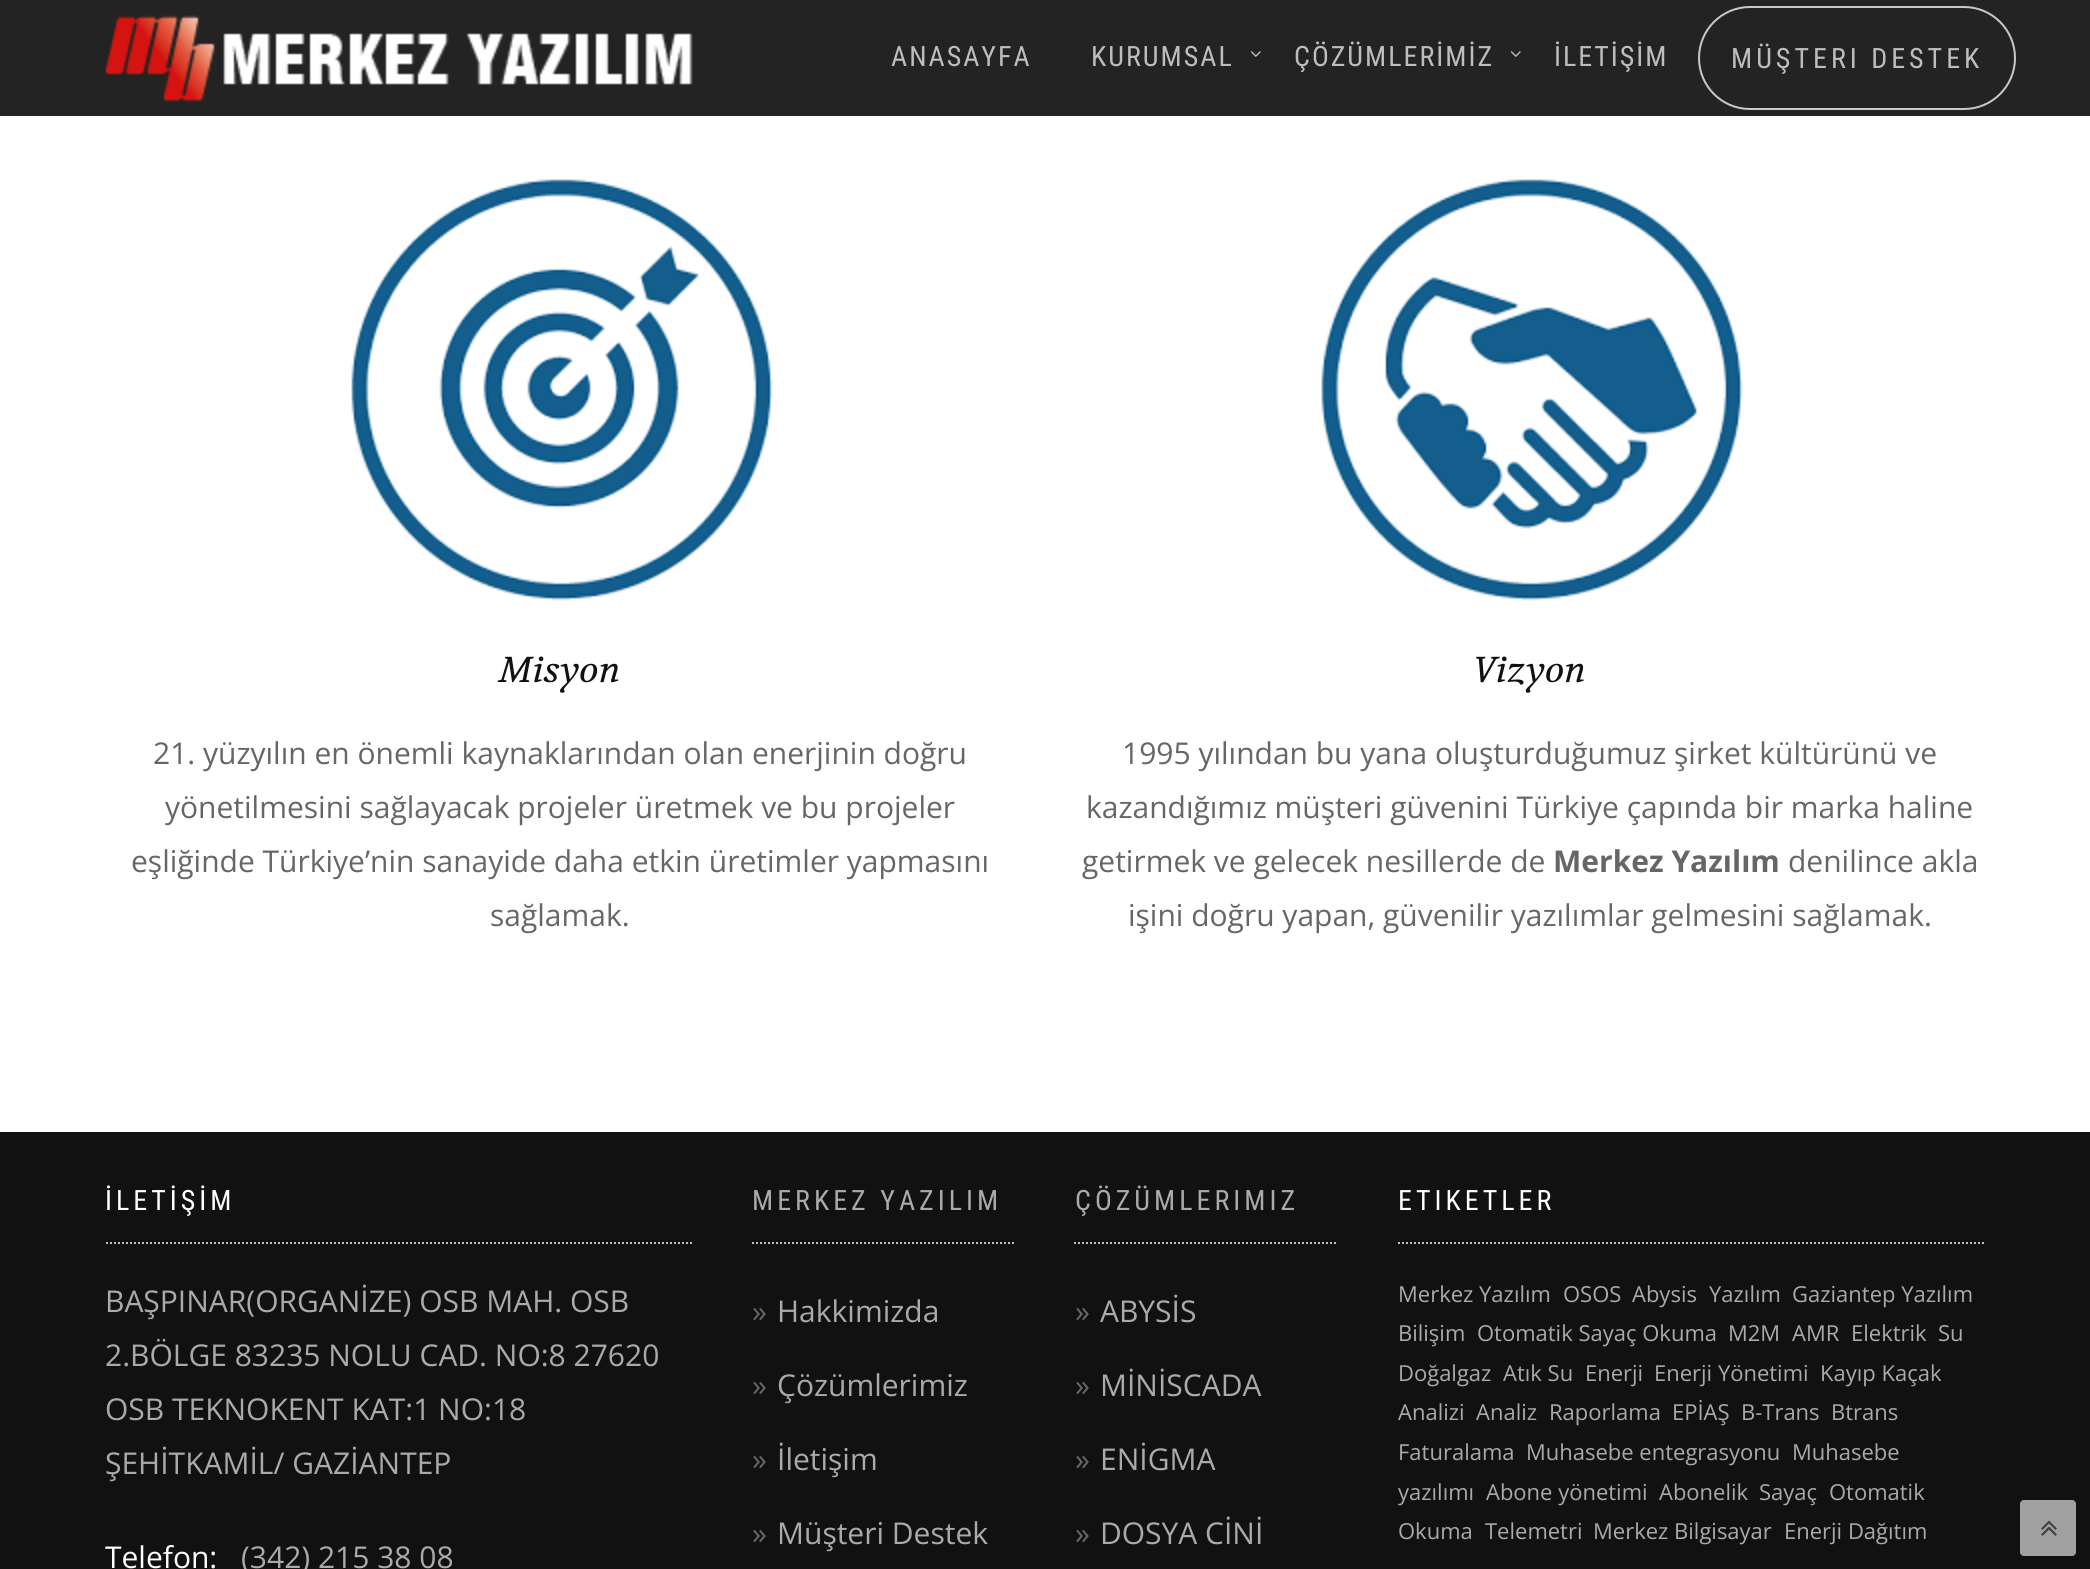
import math
import cairo

surface = cairo.ImageSurface(cairo.FORMAT_RGB24, 2090, 1569)
c = cairo.Context(surface)
options = cairo.FontOptions()
options.set_hint_metrics(cairo.HINT_METRICS_OFF)
options.set_hint_style(cairo.HINT_STYLE_NONE)
c.set_font_options(options)
c.set_miter_limit(4)
def C(code):
 c.set_source_rgb(*(v / 255 for v in bytes.fromhex(code[-6:])))
def F(family, size, italic, bold):
 c.select_font_face(family, cairo.FONT_SLANT_ITALIC if italic else cairo.FONT_SLANT_NORMAL, cairo.FONT_WEIGHT_BOLD if bold else cairo.FONT_WEIGHT_NORMAL)
 c.set_font_size(size)
def T(x, y, s):
 c.move_to(x, y)
 c.show_text(s)
def L(x, y, s, letter, word):
 c.move_to(x, y)
 for ch in s:
  c.show_text(ch)
  c.rel_move_to(letter + word * (ch == ' '), 0)
def R(x, y, w, h):
 c.rectangle(x, y, w, h)
 c.fill()
def Q(x, y, w, h, r):
 c.new_sub_path()
 for i, (u, v) in enumerate([(x + w - r, y + h - r), (x + r, y + h - r), (x + r, y + r), (x + w - r, y + r)]):
  c.arc(u, v, r, i * math.pi / 2, (i + 1) * math.pi / 2)
 c.close_path()
def I(path, x, y, w, h):
 c.save()
 c.set_source_surface(cairo.ImageSurface.create_from_png(path), x, y)
 c.rectangle(x, y, w, h)
 c.fill()
 c.restore()
C('ffffff')
c.paint()
C('232323')
R(0,0,2090,116)
I('1.png',105,15,588,87)
F('Roboto Condensed',28,0,0)
C('bdbdbd')
L(891,66,'ANASAYFA',2,0)
L(1091,66,'KURUMSAL',2,0)
I('2.png',1250,51,11,6)
L(1294,66,'ÇÖZÜMLERİMİZ',2,0)
I('2.png',1510,51,11,6)
L(1554,66,'İLETİŞİM',2,0)
Q(1699,7,316,102,51)
C('c8c8c8')
c.stroke()
C('bdbdbd')
L(1731,68,'MÜŞTERI DESTEK',4,0)
I('3.png',351,179,422,422)
F('Volkhov',36,1,0)
C('111111')
T(499,682,'Misyon')
F('Open Sans',30,0,0)
C('666666')
T(153,764,'21. yüzyılın en önemli kaynaklarından olan enerjinin doğru')
T(165,818,'yönetilmesini sağlayacak projeler üretmek ve bu projeler')
T(131,872,'eşliğinde Türkiye’nin sanayide daha etkin üretimler yapmasını')
T(490,926,'sağlamak.')
I('4.png',1321,179,422,422)
F('Volkhov',36,1,0)
C('111111')
T(1473,682,'Vizyon')
F('Open Sans',30,0,0)
C('666666')
T(1122,764,'1995 yılından bu yana oluşturduğumuz şirket kültürünü ve')
T(1086,818,'kazandığımız müşteri güvenini Türkiye çapında bir marka haline')
T(1082,872,'getirmek ve gelecek nesillerde de')
F('Open Sans',30,0,1)
T(1553,872,'Merkez Yazılım')
F('Open Sans',30,0,0)
T(1788,872,'denilince akla')
T(1128,926,'işini doğru yapan, güvenilir yazılımlar gelmesini sağlamak.')
C('111111')
R(0,1132,2090,437)
c.new_path()
c.move_to(106,1243)
c.line_to(692,1243)
C('c2c2c2')
c.set_dash([2,2])
c.stroke()
F('Roboto Condensed',28,0,0)
C('ffffff')
L(105,1210,'İLETİŞİM',4,0)
F('Open Sans',30,0,0)
C('aaaaaa')
T(105,1312,'BAŞPINAR(ORGANİZE) OSB MAH. OSB')
T(105,1366,'2.BÖLGE 83235 NOLU CAD. NO:8 27620')
T(105,1420,'OSB TEKNOKENT KAT:1 NO:18')
T(105,1474,'ŞEHİTKAMİL/ GAZİANTEP')
C('ffffff')
T(105,1568,'Telefon:')
C('aaaaaa')
T(241,1568,'(342) 215 38 08')
c.new_path()
c.move_to(752,1243)
c.line_to(1014,1243)
C('c2c2c2')
c.stroke()
F('Roboto Condensed',28,0,0)
C('aaaaaa')
L(752,1210,'MERKEZ YAZILIM',4,0)
F('Open Sans',30,0,0)
C('666666')
T(752,1322,'»')
C('aaaaaa')
T(777,1322,'Hakkimizda')
C('666666')
T(752,1396,'»')
C('aaaaaa')
T(777,1396,'Çözümlerimiz')
C('666666')
T(752,1470,'»')
C('aaaaaa')
T(777,1470,'İletişim')
C('666666')
T(752,1544,'»')
C('aaaaaa')
T(777,1544,'Müşteri Destek')
c.new_path()
c.move_to(1074,1243)
c.line_to(1338,1243)
C('c2c2c2')
c.stroke()
F('Roboto Condensed',28,0,0)
C('aaaaaa')
L(1075,1210,'ÇÖZÜMLERIMIZ',4,0)
F('Open Sans',30,0,0)
C('666666')
T(1075,1322,'»')
C('aaaaaa')
T(1100,1322,'ABYSİS')
C('666666')
T(1075,1396,'»')
C('aaaaaa')
T(1100,1396,'MİNİSCADA')
C('666666')
T(1075,1470,'»')
C('aaaaaa')
T(1100,1470,'ENİGMA')
C('666666')
T(1075,1544,'»')
C('aaaaaa')
T(1100,1544,'DOSYA CİNİ')
c.new_path()
c.move_to(1398,1243)
c.line_to(1984,1243)
C('c2c2c2')
c.stroke()
F('Roboto Condensed',28,0,0)
C('ffffff')
L(1398,1210,'ETIKETLER',4,0)
F('Open Sans',22,0,0)
C('aaaaaa')
T(1398,1302,'Merkez Yazılım')
T(1563,1302,'OSOS')
T(1632,1302,'Abysis')
T(1709,1302,'Yazılım')
T(1792,1302,'Gaziantep Yazılım')
T(1398,1341,'Bilişim')
T(1477,1341,'Otomatik Sayaç Okuma')
T(1728,1341,'M2M')
T(1792,1341,'AMR')
T(1851,1341,'Elektrik')
T(1938,1341,'Su')
T(1398,1381,'Doğalgaz')
T(1503,1381,'Atık Su')
T(1585,1381,'Enerji')
T(1654,1381,'Enerji Yönetimi')
T(1820,1381,'Kayıp Kaçak')
T(1398,1420,'Analizi')
T(1476,1420,'Analiz')
T(1549,1420,'Raporlama')
T(1672,1420,'EPİAŞ')
T(1741,1420,'B-Trans')
T(1831,1420,'Btrans')
T(1398,1460,'Faturalama')
T(1526,1460,'Muhasebe entegrasyonu')
T(1792,1460,'Muhasebe')
T(1398,1500,'yazılımı')
T(1486,1500,'Abone yönetimi')
T(1659,1500,'Abonelik')
T(1759,1500,'Sayaç')
T(1829,1500,'Otomatik')
T(1398,1539,'Okuma')
T(1485,1539,'Telemetri')
T(1593,1539,'Merkez Bilgisayar')
T(1784,1539,'Enerji Dağıtım')
C('a0a0a0')
Q(2020,1500,56,56,4)
c.fill()
I('5.png',2041,1520,16,16)
surface.write_to_png('o.png')
